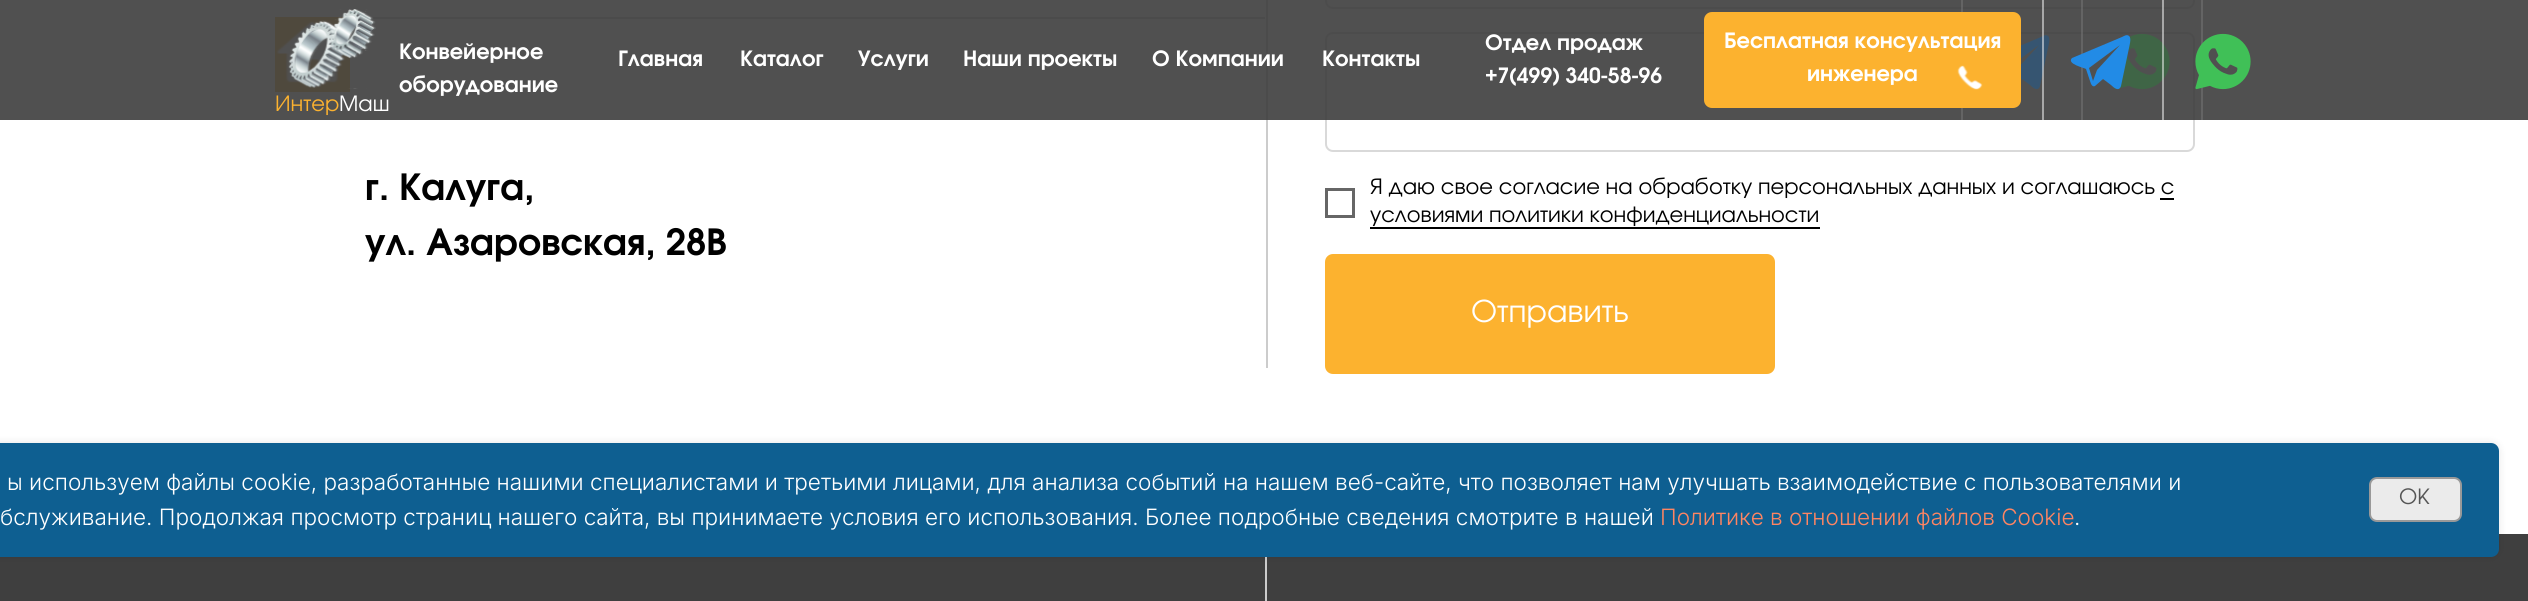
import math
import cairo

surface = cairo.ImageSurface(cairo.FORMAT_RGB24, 2528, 601)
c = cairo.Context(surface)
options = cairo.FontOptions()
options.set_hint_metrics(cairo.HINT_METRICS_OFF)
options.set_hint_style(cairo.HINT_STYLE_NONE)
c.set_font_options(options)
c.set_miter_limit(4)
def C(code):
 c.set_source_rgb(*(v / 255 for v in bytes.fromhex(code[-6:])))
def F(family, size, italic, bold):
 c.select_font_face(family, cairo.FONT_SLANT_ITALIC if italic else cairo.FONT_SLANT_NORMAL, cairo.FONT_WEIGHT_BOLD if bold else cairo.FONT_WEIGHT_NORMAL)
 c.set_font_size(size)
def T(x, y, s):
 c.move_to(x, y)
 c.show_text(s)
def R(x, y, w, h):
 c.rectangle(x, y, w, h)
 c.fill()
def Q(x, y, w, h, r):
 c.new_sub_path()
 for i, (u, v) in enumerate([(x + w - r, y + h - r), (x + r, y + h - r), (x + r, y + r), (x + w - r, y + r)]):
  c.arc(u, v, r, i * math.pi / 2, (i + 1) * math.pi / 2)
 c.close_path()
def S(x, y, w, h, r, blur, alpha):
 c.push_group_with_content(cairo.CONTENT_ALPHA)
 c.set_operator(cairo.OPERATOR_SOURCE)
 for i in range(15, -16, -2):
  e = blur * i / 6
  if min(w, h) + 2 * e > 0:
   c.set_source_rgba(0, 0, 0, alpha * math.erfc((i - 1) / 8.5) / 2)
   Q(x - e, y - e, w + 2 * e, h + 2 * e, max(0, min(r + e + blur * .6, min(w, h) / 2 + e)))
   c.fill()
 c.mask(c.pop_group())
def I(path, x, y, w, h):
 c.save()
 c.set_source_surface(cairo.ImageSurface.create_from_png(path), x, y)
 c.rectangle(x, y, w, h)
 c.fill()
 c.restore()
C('ffffff')
c.paint()
C('fcb22f')
R(275,17,75,75)
I('6.png',276,21,69,62)
C('cccccc')
R(369,17,896,2)
R(1266,0,2,368)
Q(1326,-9,868,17,7)
C('d9d9d9')
c.stroke()
Q(1326,33,868,118,7)
c.stroke()
c.set_source_rgba(0.247,0.247,0.247,0.7)
R(0,0,2528,120)
I('1.png',290,9,86,80)
c.set_source_rgba(1,1,1,0.5)
R(1961,0,2,120)
C('228be6')
c.new_path()
c.move_to(2048,36)
c.curve_to(2046,34,2043,36,2041,37)
c.line_to(1991,58)
c.curve_to(1985,64,2004,68,2005,69)
c.line_to(2008,78)
c.curve_to(2009,80,2010,88,2014,86)
c.line_to(2022,79)
c.line_to(2030,85)
c.curve_to(2033,88,2038,92,2040,86)
c.line_to(2048,48)
c.curve_to(2048,47,2051,38,2048,36)
c.close_path()
c.move_to(2016,70)
c.line_to(2012,81)
c.line_to(2008,68)
c.line_to(2039,45)
c.close_path()
c.fill()
c.set_source_rgba(1,1,1,0.5)
R(2081,0,2,120)
I('2.png',2114,33,56,57)
C('bcbcbc')
R(2201,0,2,120)
c.set_source_rgba(0.247,0.247,0.247,0.7)
R(0,0,2528,120)
I('3.png',288,9,87,80)
F('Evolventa',21,0,1)
C('ffffff')
T(399,59,'Конвейерное')
T(399,92,'оборудование')
T(618,66,'Главная')
T(740,66,'Каталог')
T(858,66,'Услуги')
T(963,66,'Наши проекты')
T(1152,66,'О Компании')
T(1322,66,'Контакты')
T(1485,50,'Отдел продаж')
T(1485,83,'+7(499) 340-58-96')
C('fcb22f')
Q(1704,12,317,96,8)
c.fill()
C('ffffff')
T(1724,48,'Бесплатная консультация')
T(1807,81,'инженера')
c.set_source_rgba(1,1,1,0.5)
R(2042,0,2,120)
C('228be6')
c.new_path()
c.move_to(2129,36)
c.curve_to(2127,34,2124,36,2122,37)
c.line_to(2072,58)
c.curve_to(2066,64,2085,68,2086,69)
c.line_to(2089,78)
c.curve_to(2090,80,2091,88,2095,86)
c.line_to(2103,79)
c.line_to(2111,85)
c.curve_to(2114,88,2119,92,2121,86)
c.line_to(2129,48)
c.curve_to(2129,47,2132,38,2129,36)
c.close_path()
c.move_to(2097,70)
c.line_to(2093,81)
c.line_to(2089,68)
c.line_to(2120,45)
c.close_path()
c.fill()
c.set_source_rgba(1,1,1,0.5)
R(2162,0,2,120)
I('4.png',2195,33,56,57)
I('5.png',1957,65,26,25)
F('Evolventa',21,0,0)
C('fcb22f')
T(275,111,'Интер')
C('ffffff')
T(339,111,'Маш')
F('Evolventa',36,0,1)
C('000000')
T(365,200,'г. Калуга,')
T(365,255,'ул. Азаровская, 28В')
c.rectangle(1326.5,189.5,27,27)
C('666666')
c.set_line_width(3)
c.stroke()
F('Evolventa',21,0,0)
C('000000')
T(1370,194,'Я даю свое согласие на обработку персональных данных и соглашаюсь с')
T(1370,222,'условиями политики конфиденциальности')
R(2160,198,14,2)
R(1370,227,450,2)
C('fcb22f')
Q(1325,254,450,120,8)
c.fill()
F('Evolventa',30,0,0)
C('ffffff')
T(1471,322,'Отправить')
C('3f3f3f')
R(0,534,2528,67)
C('cccccc')
R(1265,557,2,44)
C('000000')
S(-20,443,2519,114,8,4,.1)
C('0e5f91')
Q(-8,443,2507,114,8)
c.fill()
F('Inter Light',22.5,0,0)
C('ffffff')
T(7,490,'ы используем файлы cookie, разработанные нашими специалистами и третьими лицами, для анализа событий на нашем веб-сайте, что позволяет нам улучшать взаимодействие с пользователями и')
T(0,525,'бслуживание. Продолжая просмотр страниц нашего сайта, вы принимаете условия его использования. Более подробные сведения смотрите в нашей')
C('ff8562')
T(1660,525,'Политике в отношении файлов Cookie')
C('ffffff')
T(2074,525,'.')
C('ebebeb')
Q(2370,478,91,43,7)
c.fill_preserve()
C('999999')
c.set_line_width(2)
c.stroke()
F('Evolventa',21,0,0)
C('555555')
T(2399,504,'OK')
surface.write_to_png('o.png')
